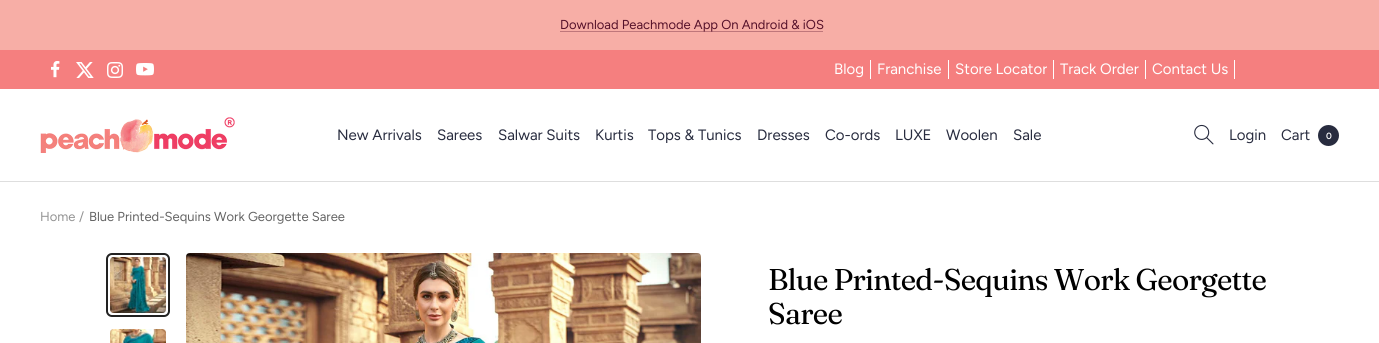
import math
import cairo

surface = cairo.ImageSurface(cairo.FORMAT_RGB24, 1379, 343)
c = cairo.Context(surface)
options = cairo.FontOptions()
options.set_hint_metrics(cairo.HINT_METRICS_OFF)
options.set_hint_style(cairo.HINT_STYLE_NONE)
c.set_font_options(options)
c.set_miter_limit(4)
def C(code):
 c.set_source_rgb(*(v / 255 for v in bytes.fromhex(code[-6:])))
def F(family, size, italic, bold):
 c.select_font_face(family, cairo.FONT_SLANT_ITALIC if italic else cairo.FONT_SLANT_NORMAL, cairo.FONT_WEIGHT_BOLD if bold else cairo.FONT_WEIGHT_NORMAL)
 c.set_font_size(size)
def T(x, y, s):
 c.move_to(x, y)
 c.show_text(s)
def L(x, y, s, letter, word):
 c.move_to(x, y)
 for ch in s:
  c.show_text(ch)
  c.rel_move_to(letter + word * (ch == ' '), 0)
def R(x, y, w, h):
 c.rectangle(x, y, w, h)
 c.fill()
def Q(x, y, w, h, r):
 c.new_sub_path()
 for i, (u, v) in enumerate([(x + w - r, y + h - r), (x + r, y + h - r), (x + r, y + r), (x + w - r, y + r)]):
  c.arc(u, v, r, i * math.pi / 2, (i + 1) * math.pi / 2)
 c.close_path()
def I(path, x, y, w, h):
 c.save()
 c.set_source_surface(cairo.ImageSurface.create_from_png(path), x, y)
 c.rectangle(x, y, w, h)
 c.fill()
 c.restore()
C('ffffff')
c.paint()
C('f7aea6')
R(0,0,1379,50)
C('bf777b')
R(560,31,263,1)
F('Figtree',13,0,0)
C('56112a')
T(560,29,'Download Peachmode App On Android & iOS')
C('dedede')
R(0,181,1379,1)
C('f57f7f')
R(0,50,1379,39)
I('1.png',51,61,9,17)
I('2.png',76,62,18,16)
I('3.png',107,62,16,16)
I('4.png',136,63,18,13)
C('ffffff')
R(870,60,1,19)
F('Figtree',15,0,0)
T(834,74,'Blog')
R(948,60,1,19)
T(877,74,'Franchise')
R(1053,60,1,19)
T(955,74,'Store Locator')
R(1145,60,1,19)
T(1060,74,'Track Order')
R(1234,60,1,19)
T(1152,74,'Contact Us')
I('5.png',40,117,195,36)
C('282c3f')
T(337,140,'New Arrivals')
T(437,140,'Sarees')
T(498,140,'Salwar Suits')
T(595,140,'Kurtis')
T(648,140,'Tops & Tunics')
T(757,140,'Dresses')
T(825,140,'Co-ords')
T(895,140,'LUXE')
T(946,140,'Woolen')
T(1013,140,'Sale')
I('6.png',1194,124,20,21)
T(1229,140,'Login')
T(1281,140,'Cart')
c.new_path()
c.arc(1328.5,135.5,10.5,0,2 * math.pi)
c.fill()
F('Figtree SemiBold',9,0,0)
C('ffffff')
T(1326,139,'0')
F('Figtree',13,0,0)
C('939393')
T(40,221,'Home')
T(79,221,'/')
C('646464')
T(89,221,'Blue Printed-Sequins Work Georgette Saree')
I('7.png',110,257,56,56)
Q(107,254,62,62,5)
C('222222')
c.stroke()
I('8.png',110,329,56,14)
I('9.png',186,253,515,90)
F('Fraunces',30,0,0)
C('000000')
L(768,290,'Blue Printed-Sequins Work Georgette',-.7,0)
L(768,324,'Saree',-.7,0)
surface.write_to_png('o.png')
